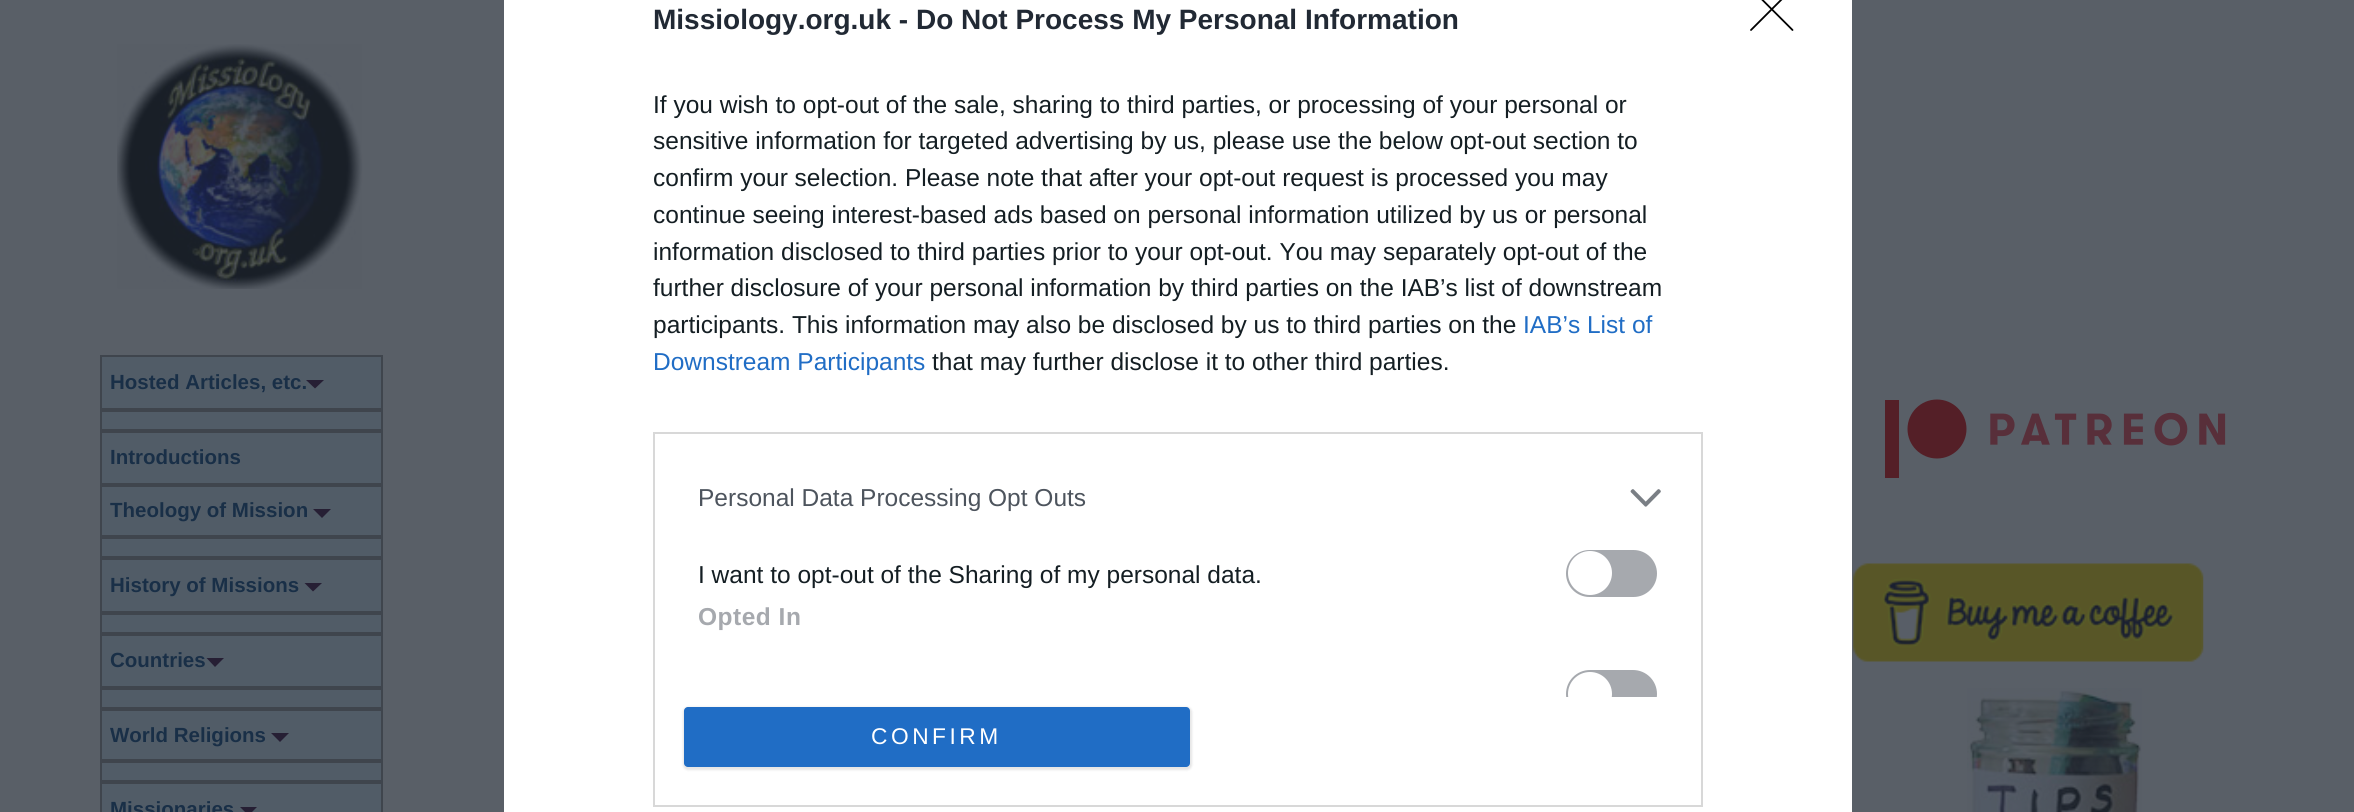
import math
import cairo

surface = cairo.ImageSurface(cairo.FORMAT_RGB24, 2354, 812)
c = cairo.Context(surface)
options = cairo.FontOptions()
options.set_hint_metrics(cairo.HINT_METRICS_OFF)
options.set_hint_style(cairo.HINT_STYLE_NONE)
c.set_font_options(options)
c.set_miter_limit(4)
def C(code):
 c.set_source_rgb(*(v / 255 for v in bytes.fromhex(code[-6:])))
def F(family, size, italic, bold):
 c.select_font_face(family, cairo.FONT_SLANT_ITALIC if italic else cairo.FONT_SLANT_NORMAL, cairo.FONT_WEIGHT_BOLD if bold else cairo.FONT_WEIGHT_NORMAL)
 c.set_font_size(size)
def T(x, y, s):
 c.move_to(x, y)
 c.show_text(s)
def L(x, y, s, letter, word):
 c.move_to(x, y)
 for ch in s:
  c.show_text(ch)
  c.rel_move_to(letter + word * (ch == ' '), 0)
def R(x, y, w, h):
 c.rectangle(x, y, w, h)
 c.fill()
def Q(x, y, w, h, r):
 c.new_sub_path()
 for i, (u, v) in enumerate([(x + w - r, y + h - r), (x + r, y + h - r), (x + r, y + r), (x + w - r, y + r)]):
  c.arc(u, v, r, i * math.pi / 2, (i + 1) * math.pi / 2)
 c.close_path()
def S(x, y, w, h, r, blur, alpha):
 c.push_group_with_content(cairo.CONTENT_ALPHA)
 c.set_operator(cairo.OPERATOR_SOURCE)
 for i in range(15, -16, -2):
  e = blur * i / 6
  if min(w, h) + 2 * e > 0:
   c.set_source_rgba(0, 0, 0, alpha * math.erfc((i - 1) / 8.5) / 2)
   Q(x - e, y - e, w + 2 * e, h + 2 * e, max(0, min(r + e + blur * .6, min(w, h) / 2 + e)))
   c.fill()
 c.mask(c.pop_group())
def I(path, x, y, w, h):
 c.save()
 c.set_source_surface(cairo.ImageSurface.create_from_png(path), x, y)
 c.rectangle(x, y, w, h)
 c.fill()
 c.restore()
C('595f67')
c.paint()
I('1.png',117,44,246,245)
C('515c67')
c.rectangle(101,356,281,53)
c.fill_preserve()
C('3f454d')
c.stroke()
F('Liberation Sans',20.5,0,1)
C('192f47')
T(110,389,'Hosted Articles, etc.')
C('261f34')
c.new_path()
c.move_to(306,380)
c.line_to(324,380)
c.line_to(315,388.5)
c.close_path()
c.fill()
C('515c67')
c.rectangle(101,411,281,19)
c.fill_preserve()
C('3f454d')
c.stroke()
C('515c67')
c.rectangle(101,432,281,52)
c.fill_preserve()
C('3f454d')
c.stroke()
C('192f47')
T(110,464,'Introductions')
C('515c67')
c.rectangle(101,486,281,50)
c.fill_preserve()
C('3f454d')
c.stroke()
C('192f47')
T(110,517,'Theology of Mission')
C('261f34')
c.new_path()
c.move_to(313,509)
c.line_to(331,509)
c.line_to(322,518)
c.close_path()
c.fill()
C('515c67')
c.rectangle(101,538,281,19)
c.fill_preserve()
C('3f454d')
c.stroke()
C('515c67')
c.rectangle(101,559,281,53)
c.fill_preserve()
C('3f454d')
c.stroke()
C('192f47')
T(110,592,'History of Missions')
C('261f34')
c.new_path()
c.move_to(304.5,583)
c.line_to(322,583)
c.line_to(313,591.5)
c.close_path()
c.fill()
C('515c67')
c.rectangle(101,614,281,19)
c.fill_preserve()
C('3f454d')
c.stroke()
C('515c67')
c.rectangle(101,635,281,52)
c.fill_preserve()
C('3f454d')
c.stroke()
C('192f47')
T(110,667,'Countries')
C('261f34')
c.new_path()
c.move_to(206.5,658)
c.line_to(224,658)
c.line_to(215,667)
c.close_path()
c.fill()
C('515c67')
c.rectangle(101,689,281,19)
c.fill_preserve()
C('3f454d')
c.stroke()
C('515c67')
c.rectangle(101,710,281,50)
c.fill_preserve()
C('3f454d')
c.stroke()
C('192f47')
T(110,742,'World Religions')
C('261f34')
c.new_path()
c.move_to(271,733)
c.line_to(289,733)
c.line_to(280,742)
c.close_path()
c.fill()
C('515c67')
c.rectangle(101,762,281,19)
c.fill_preserve()
C('3f454d')
c.stroke()
C('515c67')
c.rectangle(101,783,281,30)
c.fill_preserve()
C('3f454d')
c.stroke()
C('192f47')
T(110,816,'Missionaries')
C('261f34')
c.new_path()
c.move_to(240,807)
c.line_to(257,807)
c.line_to(248.5,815.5)
c.close_path()
c.fill()
I('2.png',1885,399,341,79)
I('3.png',1853,563,351,99)
I('4.png',1967,688,175,124)
C('ffffff')
R(504,0,1348,812)
F('Liberation Sans',28,0,1)
C('212934')
T(653,29,'Missiology.org.uk - Do Not Process My Personal Information')
F('Liberation Sans',24.5,0,0)
C('141e23')
T(653,113,'If you wish to opt-out of the sale, sharing to third parties, or processing of your personal or')
T(653,149,'sensitive information for targeted advertising by us, please use the below opt-out section to')
T(653,186,'confirm your selection. Please note that after your opt-out request is processed you may')
T(653,223,'continue seeing interest-based ads based on personal information utilized by us or personal')
T(653,260,'information disclosed to third parties prior to your opt-out. You may separately opt-out of the')
T(653,296,'further disclosure of your personal information by third parties on the IAB’s list of downstream')
T(653,333,'participants. This information may also be disclosed by us to third parties on the')
C('206dc5')
T(1523,333,'IAB’s List of')
T(653,370,'Downstream Participants')
C('141e23')
T(932,370,'that may further disclose it to other third parties.')
c.rectangle(654,433,1048,373)
C('d8d8d8')
c.stroke()
C('4d545d')
T(698,506,'Personal Data Processing Opt Outs')
I('5.png',1630,489,31,18)
C('141e23')
T(698,583,'I want to opt-out of the Sharing of my personal data.')
C('a6a9ae')
Q(1567,551,89,45,22.5)
c.fill_preserve()
c.stroke()
C('ffffff')
c.arc(1590,573,22,0,2 * math.pi)
c.fill()
F('Liberation Sans',24.5,0,1)
C('a6a9ae')
L(698,625,'Opted In',.5,0)
c.save()
c.rectangle(672,452,1012,245)
c.clip()
Q(1567,671,89,46,23)
c.fill_preserve()
c.stroke()
C('ffffff')
c.arc(1590,694,22,0,2 * math.pi)
c.fill()
c.restore()
C('000000')
S(683,707,509,63,5,1,.1)
C('206dc5')
Q(684,707,506,60,4)
c.fill()
F('Liberation Sans',22.75,0,0)
C('ffffff')
L(871,744,'CONFIRM',3.5,0)
c.new_path()
c.move_to(1751,-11.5)
c.line_to(1792.5,30)
c.move_to(1792.5,-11.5)
c.line_to(1751,30)
C('000000')
c.set_line_width(1.8)
c.set_line_cap(cairo.LINE_CAP_ROUND)
c.set_line_join(cairo.LINE_JOIN_ROUND)
c.stroke()
surface.write_to_png('o.png')
